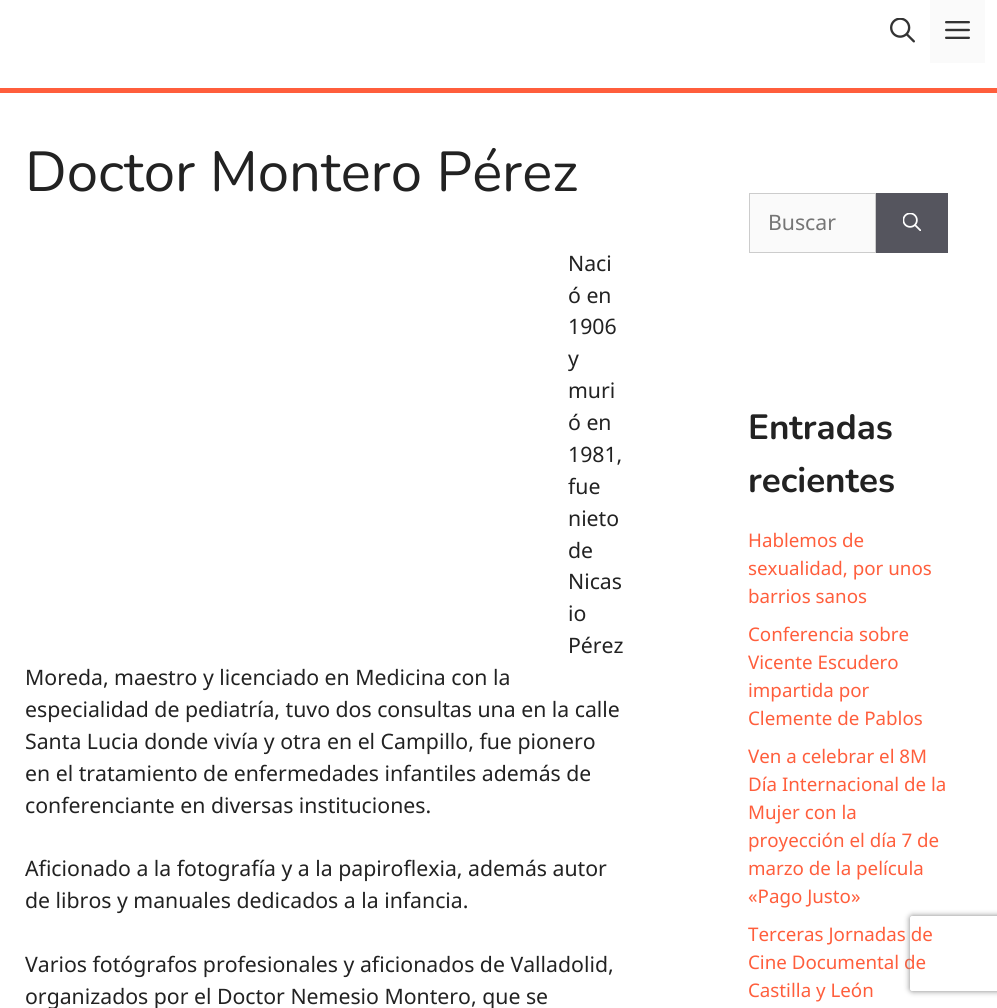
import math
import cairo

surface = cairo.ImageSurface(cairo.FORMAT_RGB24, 997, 1008)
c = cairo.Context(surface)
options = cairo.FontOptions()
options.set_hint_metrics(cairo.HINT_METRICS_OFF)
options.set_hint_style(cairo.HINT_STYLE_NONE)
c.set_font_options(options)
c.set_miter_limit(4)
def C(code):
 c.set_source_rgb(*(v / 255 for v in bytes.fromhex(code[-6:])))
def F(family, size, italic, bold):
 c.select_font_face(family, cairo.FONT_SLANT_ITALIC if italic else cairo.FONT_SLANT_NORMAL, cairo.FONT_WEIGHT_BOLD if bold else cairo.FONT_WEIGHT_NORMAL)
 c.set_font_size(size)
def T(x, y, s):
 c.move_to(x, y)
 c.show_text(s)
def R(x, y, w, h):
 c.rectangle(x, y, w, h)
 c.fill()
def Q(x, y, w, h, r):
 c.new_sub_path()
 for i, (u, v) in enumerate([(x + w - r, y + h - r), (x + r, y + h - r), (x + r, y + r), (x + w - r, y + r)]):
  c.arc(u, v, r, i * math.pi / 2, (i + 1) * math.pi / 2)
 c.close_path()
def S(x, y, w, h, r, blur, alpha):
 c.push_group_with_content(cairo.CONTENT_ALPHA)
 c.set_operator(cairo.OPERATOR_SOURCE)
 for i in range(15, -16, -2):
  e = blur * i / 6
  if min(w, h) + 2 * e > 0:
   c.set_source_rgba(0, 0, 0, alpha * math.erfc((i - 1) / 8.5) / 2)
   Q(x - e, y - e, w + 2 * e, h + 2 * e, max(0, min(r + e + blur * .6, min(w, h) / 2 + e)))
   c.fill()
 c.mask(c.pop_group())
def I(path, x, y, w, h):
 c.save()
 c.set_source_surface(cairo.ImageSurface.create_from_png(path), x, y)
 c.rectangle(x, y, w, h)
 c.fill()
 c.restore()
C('ffffff')
c.paint()
C('ff5e3c')
R(0,88,997,5)
I('1.png',890,18,25,25)
C('fafafa')
R(930,0,55,63)
I('2.png',945,21,25,18)
F('Nunito',56.25,0,0)
C('222222')
T(25,191,'Doctor Montero Pérez')
F('Noto Sans',21.25,0,0)
T(568,271,'Naci')
T(568,303,'ó en')
T(568,334,'1906')
T(568,366,'y')
T(568,398,'muri')
T(568,430,'ó en')
T(568,462,'1981,')
T(568,494,'fue')
T(568,526,'nieto')
T(568,558,'de')
T(568,589,'Nicas')
T(568,621,'io')
T(568,653,'Pérez')
T(25,685,'Moreda, maestro y licenciado en Medicina con la')
T(25,717,'especialidad de pediatría, tuvo dos consultas una en la calle')
T(25,749,'Santa Lucia donde vivía y otra en el Campillo, fue pionero')
T(25,781,'en el tratamiento de enfermedades infantiles además de')
T(25,813,'conferenciante en diversas instituciones.')
T(25,876,'Aficionado a la fotografía y a la papiroflexia, además autor')
T(25,908,'de libros y manuales dedicados a la infancia.')
T(25,972,'Varios fotógrafos profesionales y aficionados de Valladolid,')
T(25,1004,'organizados por el Doctor Nemesio Montero, que se')
C('fafafa')
c.rectangle(749.5,193.5,126,59)
c.fill_preserve()
C('cccccc')
c.set_line_width(1)
c.stroke()
C('757575')
T(768,230,'Buscar')
C('55555e')
R(876,193,72,60)
I('3.png',903,213,18,18)
F('Nunito',35,0,1)
C('222222')
T(748,439,'Entradas')
T(748,492,'recientes')
F('Noto Sans',18.75,0,0)
C('ff5e3c')
T(748,547,'Hablemos de')
T(748,575,'sexualidad, por unos')
T(748,603,'barrios sanos')
T(748,641,'Conferencia sobre')
T(748,669,'Vicente Escudero')
T(748,697,'impartida por')
T(748,725,'Clemente de Pablos')
T(748,763,'Ven a celebrar el 8M')
T(748,791,'Día Internacional de la')
T(748,819,'Mujer con la')
T(748,847,'proyección el día 7 de')
T(748,875,'marzo de la película')
T(748,903,'«Pago Justo»')
T(748,941,'Terceras Jornadas de')
T(748,969,'Cine Documental de')
T(748,997,'Castilla y León')
c.save()
c.set_fill_rule(cairo.FILL_RULE_EVEN_ODD)
c.new_path()
c.move_to(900,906)
c.line_to(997,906)
c.line_to(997,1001)
c.line_to(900,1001)
c.close_path()
c.move_to(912.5,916)
c.line_to(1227.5,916)
c.curve_to(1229,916,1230,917,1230,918.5)
c.line_to(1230,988.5)
c.curve_to(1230,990,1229,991,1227.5,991)
c.line_to(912.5,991)
c.curve_to(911,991,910,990,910,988.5)
c.line_to(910,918.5)
c.curve_to(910,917,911,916,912.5,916)
c.close_path()
c.clip()
C('808080')
S(910,916,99,75,2.5,3,1)
c.restore()
surface.write_to_png('o.png')
